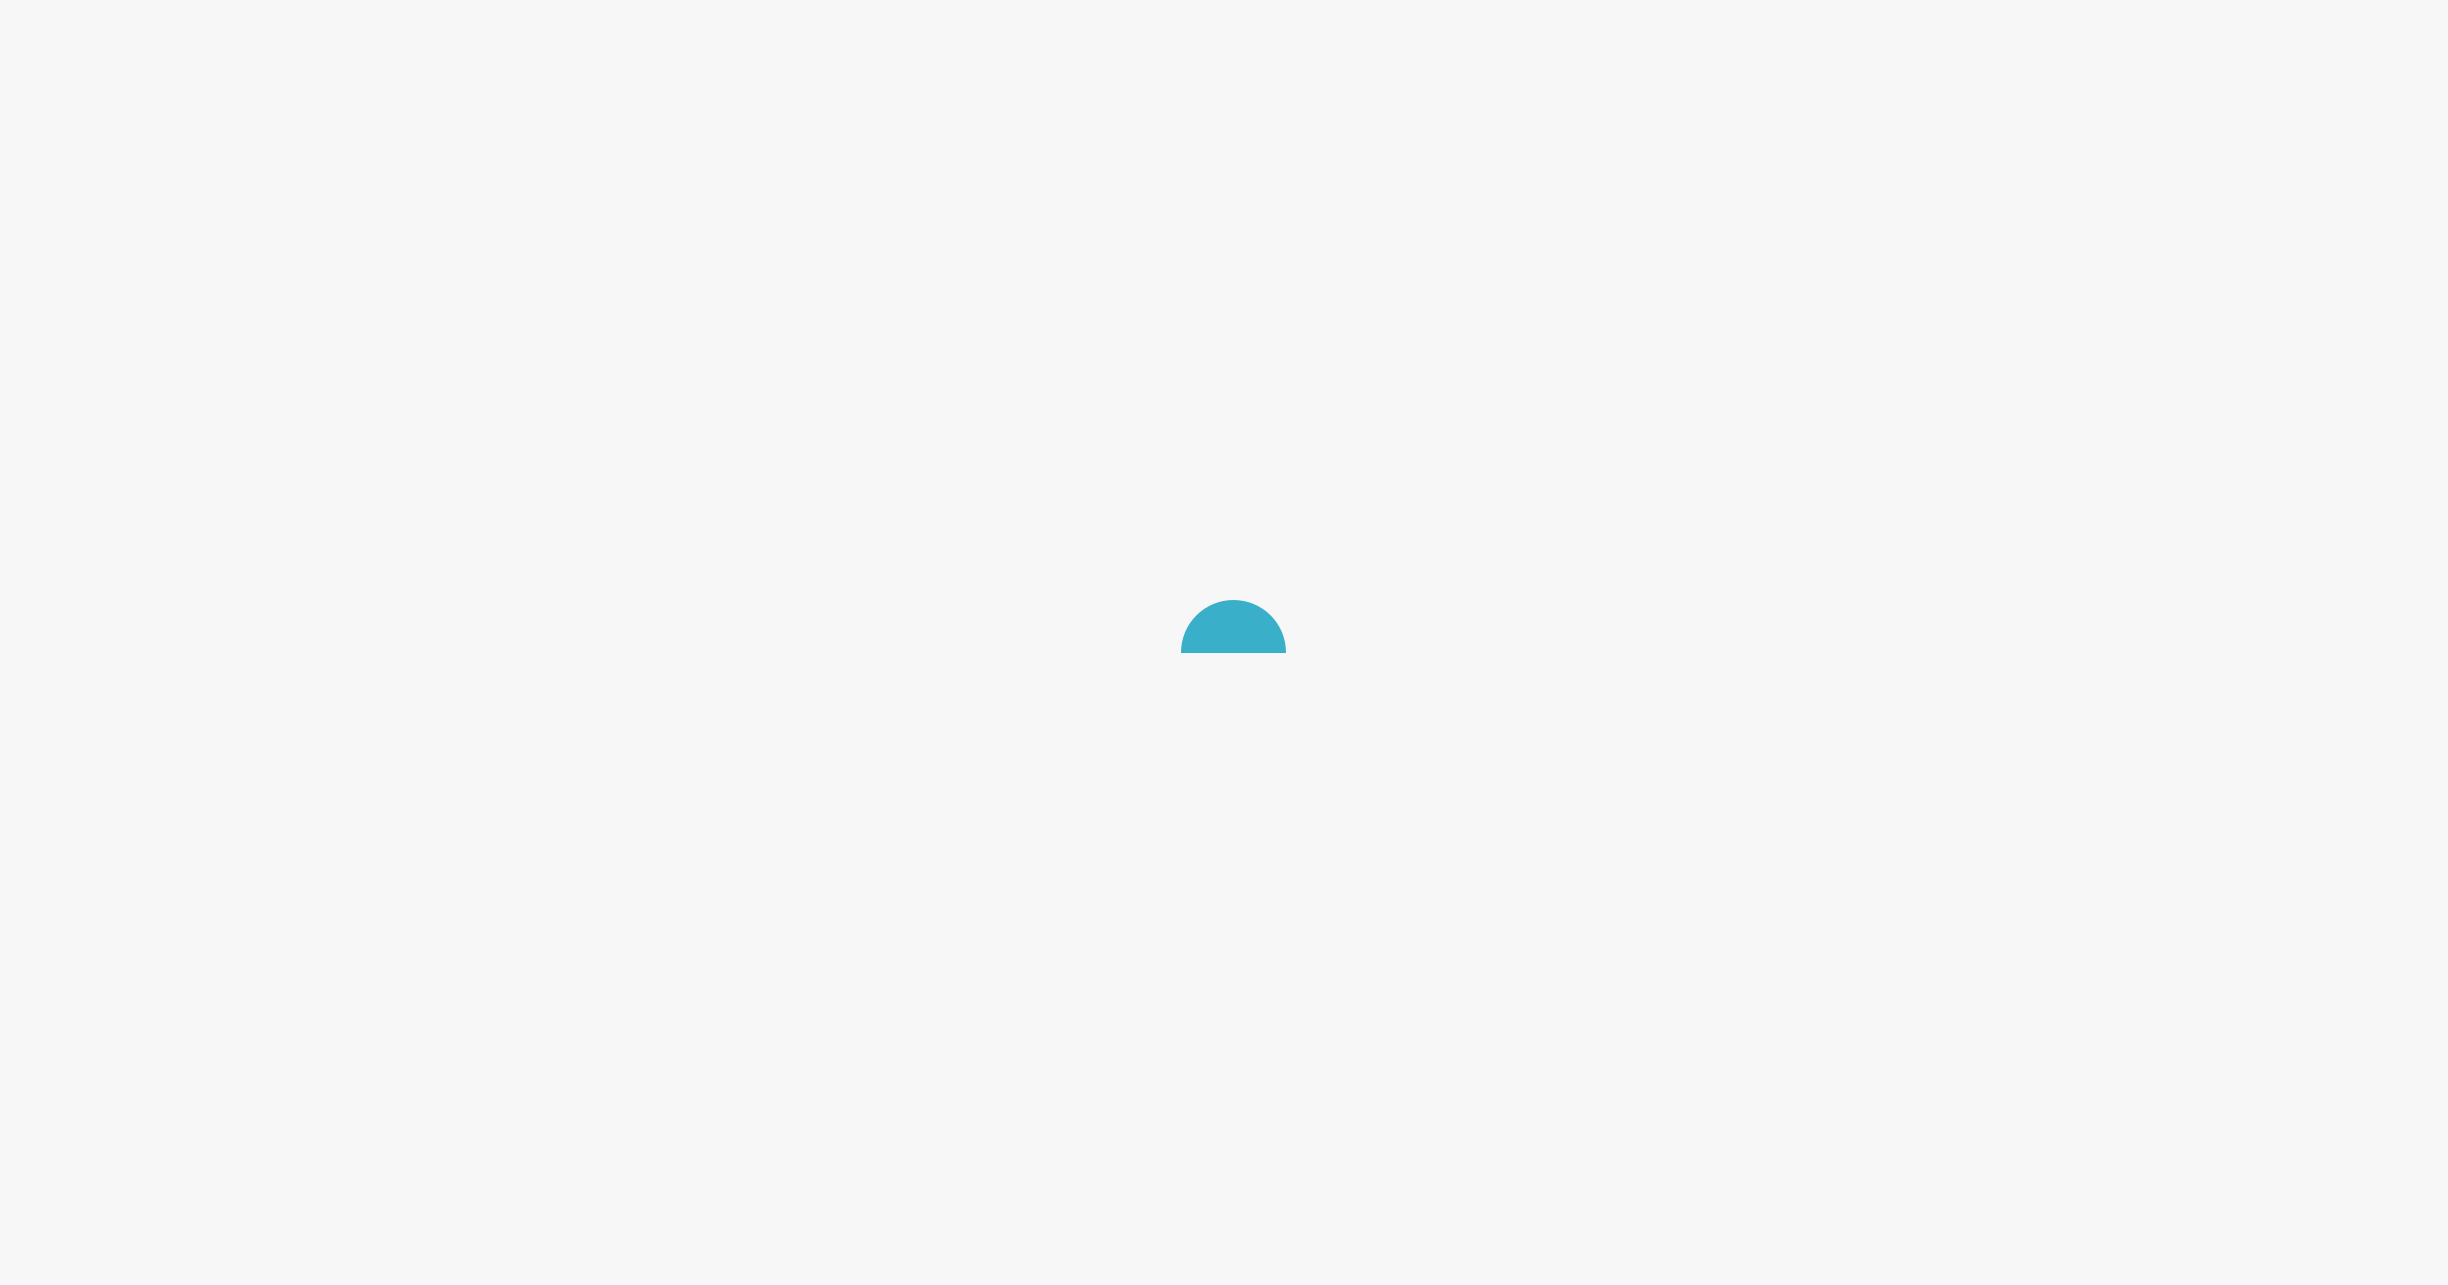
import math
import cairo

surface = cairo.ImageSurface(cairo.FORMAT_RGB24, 2448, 1285)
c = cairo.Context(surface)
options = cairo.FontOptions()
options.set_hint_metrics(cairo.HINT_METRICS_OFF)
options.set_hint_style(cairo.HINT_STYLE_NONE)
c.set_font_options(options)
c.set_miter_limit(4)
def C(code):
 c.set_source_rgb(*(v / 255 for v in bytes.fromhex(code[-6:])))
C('f7f7f7')
c.paint()
C('39afc9')
c.new_path()
c.move_to(1233.5,600)
c.curve_to(1262.5,600,1286,623.5,1286,652.5)
c.line_to(1286,653)
c.line_to(1181,653)
c.line_to(1181,652.5)
c.curve_to(1181,623.5,1204.5,600,1233.5,600)
c.close_path()
c.fill()
surface.write_to_png('o.png')
